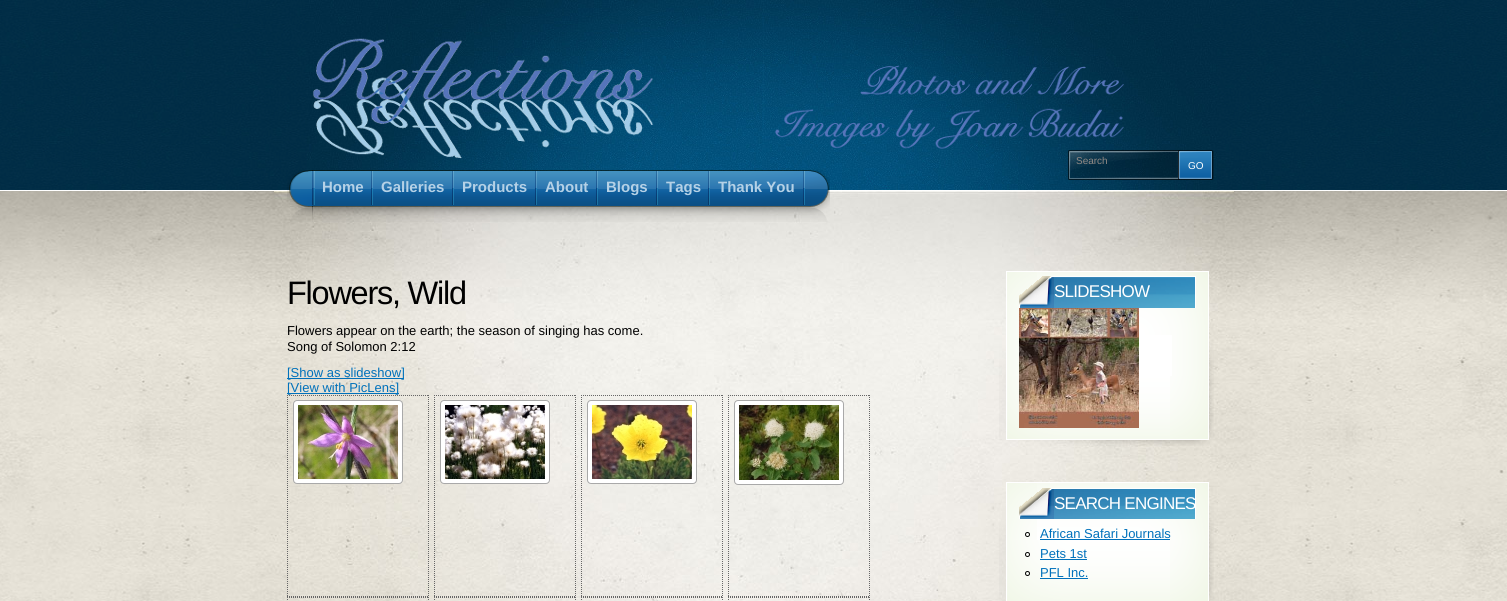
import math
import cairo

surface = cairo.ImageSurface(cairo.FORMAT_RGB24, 1507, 601)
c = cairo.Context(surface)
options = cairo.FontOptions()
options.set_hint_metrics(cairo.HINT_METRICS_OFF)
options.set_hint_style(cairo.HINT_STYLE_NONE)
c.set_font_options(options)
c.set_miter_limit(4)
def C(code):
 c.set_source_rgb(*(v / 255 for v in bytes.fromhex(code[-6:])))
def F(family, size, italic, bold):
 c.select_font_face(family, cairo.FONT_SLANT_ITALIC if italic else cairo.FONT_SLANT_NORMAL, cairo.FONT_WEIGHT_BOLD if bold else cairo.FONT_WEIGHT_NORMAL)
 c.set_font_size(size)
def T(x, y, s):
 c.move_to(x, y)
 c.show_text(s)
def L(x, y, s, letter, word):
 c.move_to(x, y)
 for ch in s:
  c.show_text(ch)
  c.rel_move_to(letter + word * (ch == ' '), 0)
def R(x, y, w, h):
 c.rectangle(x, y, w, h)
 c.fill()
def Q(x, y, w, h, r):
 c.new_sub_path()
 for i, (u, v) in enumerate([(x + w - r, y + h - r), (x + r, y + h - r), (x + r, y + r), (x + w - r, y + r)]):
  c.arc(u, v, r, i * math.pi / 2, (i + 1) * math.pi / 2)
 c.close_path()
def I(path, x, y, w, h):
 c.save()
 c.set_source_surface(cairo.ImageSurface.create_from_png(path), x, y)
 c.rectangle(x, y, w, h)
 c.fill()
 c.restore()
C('ffffff')
c.paint()
I('1.png',0,0,1507,190)
I('2.png',307,0,910,190)
I('3.png',313,38,811,121)
I('4.png',1068,150,110,30)
I('5.png',1178,150,36,30)
F('Liberation Sans',10,0,0)
C('928a85')
T(1076,164,'Search')
C('ffffff')
T(1188,169,'GO')
I('11.png',0,191,1507,200)
I('10.png',0,391,1507,210)
I('12.png',274,191,960,410)
I('6.png',287,170,26,52)
I('7.png',312,170,518,52)
I('8.png',803,171,2,34)
I('9.png',312,171,3,34)
F('Liberation Sans',15,0,1)
C('b5d1e6')
T(322,192,'Home')
I('8.png',371,171,2,34)
T(381,192,'Galleries')
I('8.png',452,171,2,34)
T(462,192,'Products')
I('8.png',535,171,2,34)
T(545,192,'About')
I('8.png',596,171,2,34)
T(606,192,'Blogs')
I('8.png',656,171,2,34)
T(666,192,'Tags')
I('8.png',708,171,2,34)
T(718,192,'Thank You')
F('Liberation Sans',32.5,0,0)
C('000000')
L(287,304,'Flowers, Wild',-1.25,0)
F('Liberation Sans',13,0,0)
T(287,335,'Flowers appear on the earth; the season of singing has come.')
T(287,351,'Song of Solomon 2:12')
C('0071bb')
R(287,378,117,1)
T(287,377,'[Show as slideshow]')
R(287,393,112,1)
T(287,392,'[View with PicLens]')
c.new_path()
c.move_to(287,395.5)
c.line_to(429,395.5)
C('666666')
c.set_line_width(1)
c.set_dash([1,1])
c.stroke()
c.new_path()
c.move_to(428.5,395)
c.line_to(428.5,597)
c.stroke()
c.new_path()
c.move_to(287,596.5)
c.line_to(429,596.5)
c.stroke()
c.new_path()
c.move_to(287.5,395)
c.line_to(287.5,597)
c.stroke()
C('ffffff')
Q(293.5,400.5,109,83,3.5)
c.fill_preserve()
C('a9a9a9')
c.set_dash([])
c.stroke()
I('13.png',298,405,100,74)
c.new_path()
c.move_to(434,395.5)
c.line_to(576,395.5)
C('666666')
c.set_dash([1,1])
c.stroke()
c.new_path()
c.move_to(575.5,395)
c.line_to(575.5,597)
c.stroke()
c.new_path()
c.move_to(434,596.5)
c.line_to(576,596.5)
c.stroke()
c.new_path()
c.move_to(434.5,395)
c.line_to(434.5,597)
c.stroke()
C('ffffff')
Q(440.5,400.5,109,83,3.5)
c.fill_preserve()
C('a9a9a9')
c.set_dash([])
c.stroke()
I('14.png',445,405,100,74)
c.new_path()
c.move_to(581,395.5)
c.line_to(723,395.5)
C('666666')
c.set_dash([1,1])
c.stroke()
c.new_path()
c.move_to(722.5,395)
c.line_to(722.5,597)
c.stroke()
c.new_path()
c.move_to(581,596.5)
c.line_to(723,596.5)
c.stroke()
c.new_path()
c.move_to(581.5,395)
c.line_to(581.5,597)
c.stroke()
C('ffffff')
Q(587.5,400.5,109,83,3.5)
c.fill_preserve()
C('a9a9a9')
c.set_dash([])
c.stroke()
I('15.png',592,405,100,74)
c.new_path()
c.move_to(728,395.5)
c.line_to(870,395.5)
C('666666')
c.set_dash([1,1])
c.stroke()
c.new_path()
c.move_to(869.5,395)
c.line_to(869.5,597)
c.stroke()
c.new_path()
c.move_to(728,596.5)
c.line_to(870,596.5)
c.stroke()
c.new_path()
c.move_to(728.5,395)
c.line_to(728.5,597)
c.stroke()
C('ffffff')
Q(734.5,400.5,109,84,3.5)
c.fill_preserve()
C('a9a9a9')
c.set_dash([])
c.stroke()
I('16.png',739,405,100,75)
c.new_path()
c.move_to(287,597.5)
c.line_to(429,597.5)
C('666666')
c.set_dash([1,1])
c.stroke()
c.new_path()
c.move_to(428.5,597)
c.line_to(428.5,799)
c.stroke()
c.new_path()
c.move_to(287.5,597)
c.line_to(287.5,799)
c.stroke()
c.new_path()
c.move_to(434,597.5)
c.line_to(576,597.5)
c.stroke()
c.new_path()
c.move_to(575.5,597)
c.line_to(575.5,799)
c.stroke()
c.new_path()
c.move_to(434.5,597)
c.line_to(434.5,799)
c.stroke()
c.new_path()
c.move_to(581,597.5)
c.line_to(723,597.5)
c.stroke()
c.new_path()
c.move_to(722.5,597)
c.line_to(722.5,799)
c.stroke()
c.new_path()
c.move_to(581.5,597)
c.line_to(581.5,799)
c.stroke()
c.new_path()
c.move_to(728,597.5)
c.line_to(870,597.5)
c.stroke()
c.new_path()
c.move_to(869.5,597)
c.line_to(869.5,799)
c.stroke()
c.new_path()
c.move_to(728.5,597)
c.line_to(728.5,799)
c.stroke()
I('17.png',999,342,215,104)
C('ffffff')
R(1006,271,203,169)
I('18.png',1007,335,12,41)
I('19.png',1172,335,36,41)
I('20.png',1006,271,202,64)
I('21.png',1007,376,202,64)
I('22.png',1006,272,31,63)
I('23.png',1170,376,39,63)
I('24.png',1019,276,35,32)
I('25.png',1054,276,142,32)
F('Liberation Sans',17,0,0)
L(1054,297,'SLIDESHOW',-.75,0)
I('26.png',1019,308,120,120)
I('27.png',999,506,215,95)
R(1006,482,203,119)
I('20.png',1006,482,202,64)
I('28.png',1007,540,163,61)
I('29.png',1006,483,31,57)
I('30.png',1170,540,39,61)
I('31.png',1019,488,35,31)
I('32.png',1054,488,142,31)
L(1054,509,'SEARCH ENGINES',-.75,0)
c.new_path()
c.arc(1027.5,534.5,2,0,2 * math.pi)
C('000000')
c.set_dash([])
c.stroke()
F('Liberation Sans',13,0,0)
C('0071bb')
T(1040,538,'African Safari Journals')
R(1040,539,130,1)
c.new_path()
c.arc(1027.5,554.5,2,0,2 * math.pi)
C('000000')
c.stroke()
C('0071bb')
T(1040,558,'Pets 1st')
R(1040,559,47,1)
c.new_path()
c.arc(1027.5,573.5,2,0,2 * math.pi)
C('000000')
c.stroke()
C('0071bb')
T(1040,577,'PFL Inc.')
R(1040,578,48,1)
surface.write_to_png('o.png')
